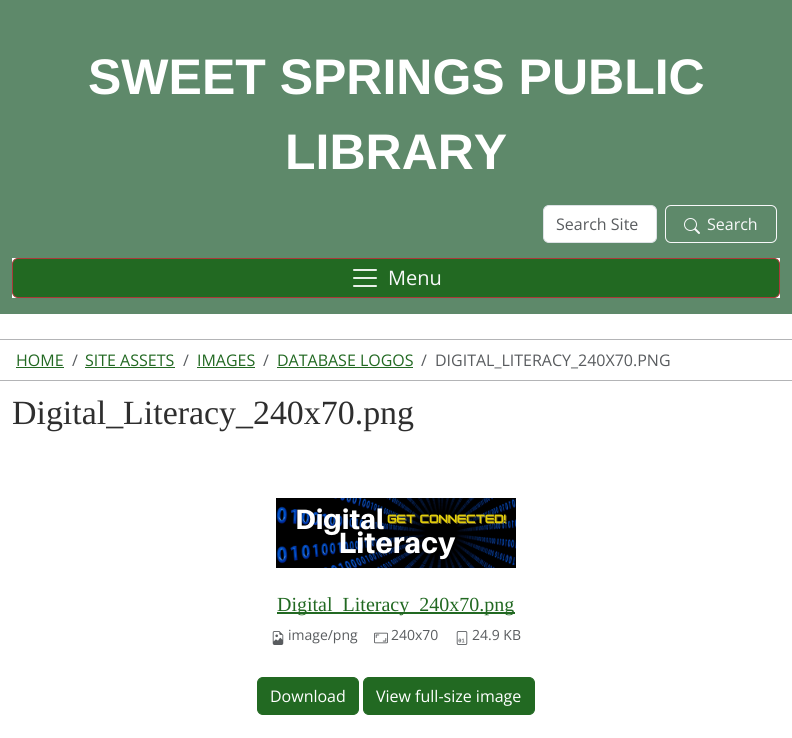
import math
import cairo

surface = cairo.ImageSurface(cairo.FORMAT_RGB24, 792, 738)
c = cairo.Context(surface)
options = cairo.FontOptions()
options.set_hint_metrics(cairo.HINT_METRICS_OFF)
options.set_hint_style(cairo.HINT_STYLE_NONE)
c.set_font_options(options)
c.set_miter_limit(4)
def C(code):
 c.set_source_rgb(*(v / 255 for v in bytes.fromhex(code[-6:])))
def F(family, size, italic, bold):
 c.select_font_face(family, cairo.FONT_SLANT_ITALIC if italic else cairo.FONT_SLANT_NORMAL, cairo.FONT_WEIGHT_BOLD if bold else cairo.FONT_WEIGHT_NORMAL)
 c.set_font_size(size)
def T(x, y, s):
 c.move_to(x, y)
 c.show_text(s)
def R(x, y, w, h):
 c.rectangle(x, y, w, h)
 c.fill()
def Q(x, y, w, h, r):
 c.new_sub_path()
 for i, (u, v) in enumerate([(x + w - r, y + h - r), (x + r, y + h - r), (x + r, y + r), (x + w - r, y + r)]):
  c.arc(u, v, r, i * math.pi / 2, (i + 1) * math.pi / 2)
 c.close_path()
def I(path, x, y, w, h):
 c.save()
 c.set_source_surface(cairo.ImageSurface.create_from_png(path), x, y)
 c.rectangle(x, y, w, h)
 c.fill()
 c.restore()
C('ffffff')
c.paint()
C('5e896a')
R(0,0,792,314)
F('Liberation Sans',50,0,1)
C('ffffff')
T(88,94,'SWEET SPRINGS PUBLIC')
T(285,169,'LIBRARY')
Q(543.5,205.5,113,37,5.5)
c.fill_preserve()
C('dee2e6')
c.set_line_width(1)
c.stroke()
F('Open Sans',16,0,0)
C('595c5f')
T(556,230,'Search Site')
Q(665.5,205.5,111,37,5.5)
C('f8f9fa')
c.stroke()
I('1.png',684,218,16,16)
T(707,230,'Search')
C('ffffff')
R(12,258,768,40)
C('226922')
Q(12.5,258.5,767,39,5.5)
c.fill_preserve()
C('aa3939')
c.stroke()
I('2.png',353,269,24,18)
F('Open Sans',20,0,0)
C('f8f9fa')
T(388,285,'Menu')
C('b3b4b6')
R(0,339,792,1)
R(0,380,792,1)
F('Open Sans',16,0,0)
C('226922')
T(16,366,'HOME')
R(16,367,48,1)
C('595c5f')
T(72,366,'/')
C('226922')
T(85,366,'SITE ASSETS')
R(85,367,90,1)
C('595c5f')
T(183,366,'/')
C('226922')
T(197,366,'IMAGES')
R(197,367,58,1)
C('595c5f')
T(263,366,'/')
C('226922')
T(277,366,'DATABASE LOGOS')
R(277,367,136,1)
C('595c5f')
T(421,366,'/')
T(435,366,'DIGITAL_LITERACY_240X70.PNG')
F('Liberation Serif',33.9,0,0)
C('2e2e2e')
T(12,424,'Digital_Literacy_240x70.png')
I('3.png',276,498,240,70)
C('226922')
R(277,612,238,2)
F('Liberation Serif',20,0,0)
T(277,611,'Digital_Literacy_240x70.png')
I('4.png',272,631,12,14)
F('Open Sans',14,0,0)
C('595c5f')
T(288,640,'image/png')
I('5.png',374,632,14,12)
T(391,640,'240x70')
I('6.png',456,631,12,14)
T(472,640,'24.9 KB')
C('226922')
Q(257.5,677.5,101,37,5.5)
c.fill_preserve()
c.stroke()
F('Open Sans',16,0,0)
C('ffffff')
T(270,702,'Download')
C('226922')
Q(363.5,677.5,171,37,5.5)
c.fill_preserve()
c.stroke()
C('ffffff')
T(376,702,'View full-size image')
surface.write_to_png('o.png')
